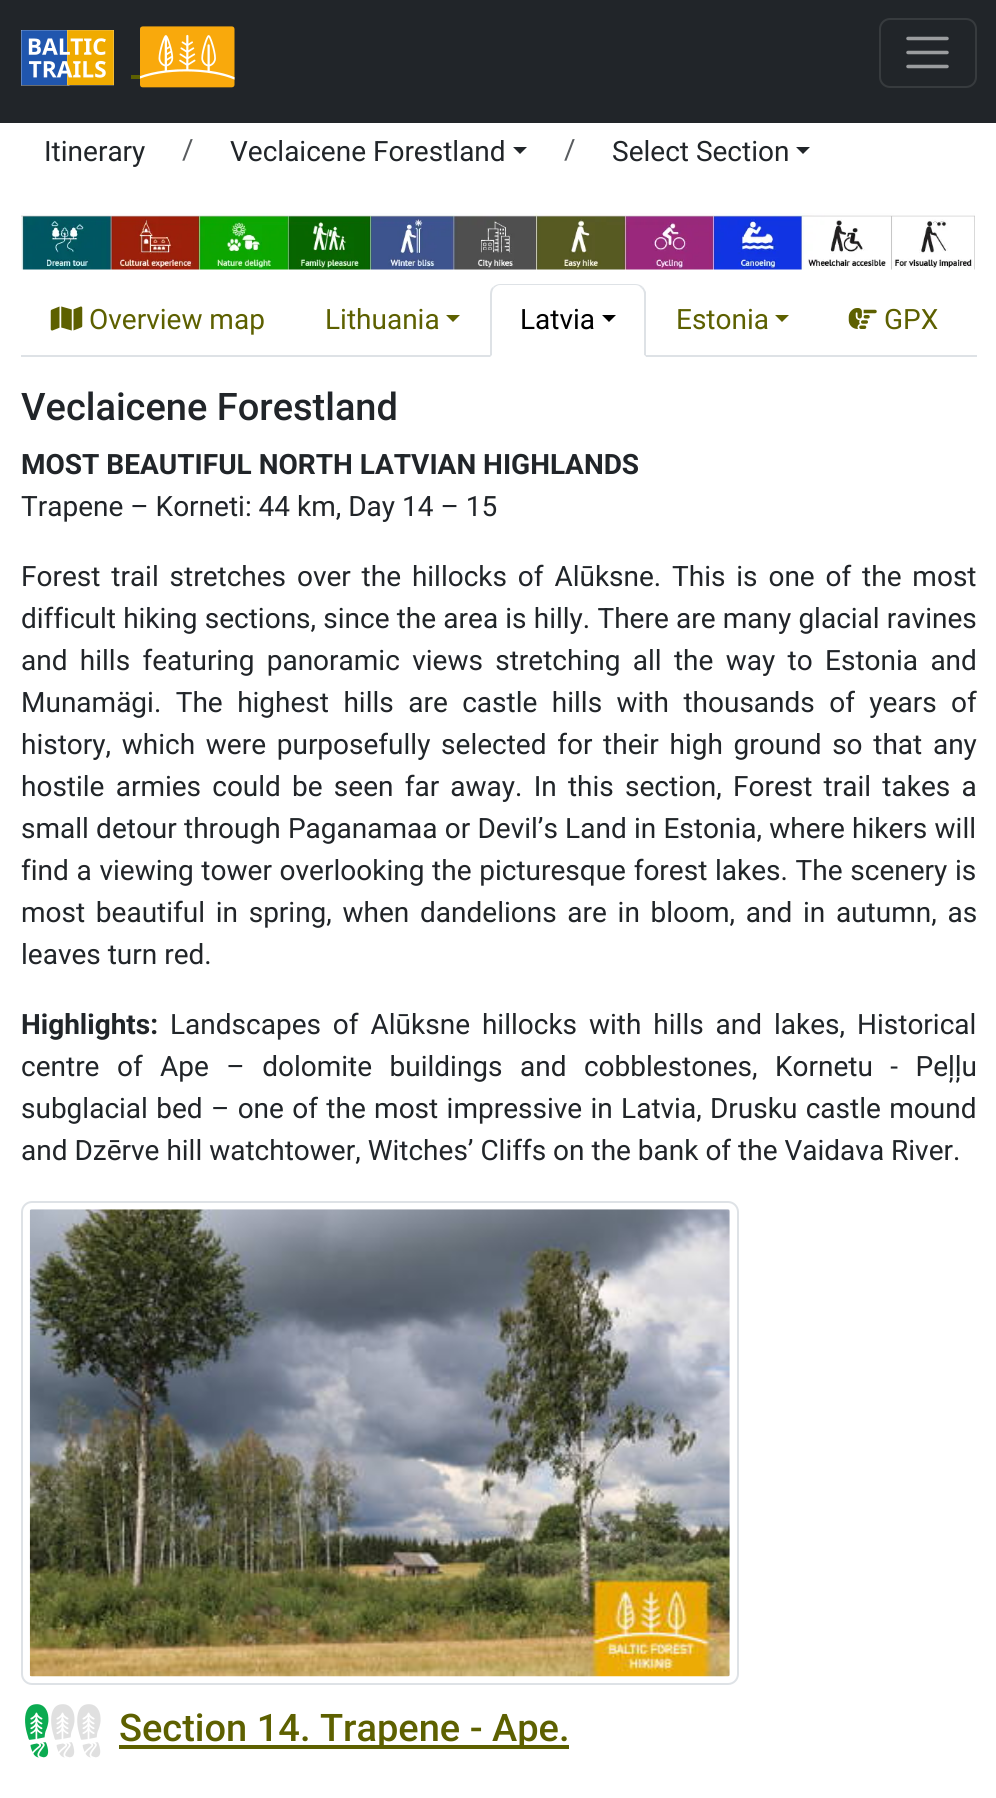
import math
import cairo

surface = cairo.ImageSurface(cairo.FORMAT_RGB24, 996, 1798)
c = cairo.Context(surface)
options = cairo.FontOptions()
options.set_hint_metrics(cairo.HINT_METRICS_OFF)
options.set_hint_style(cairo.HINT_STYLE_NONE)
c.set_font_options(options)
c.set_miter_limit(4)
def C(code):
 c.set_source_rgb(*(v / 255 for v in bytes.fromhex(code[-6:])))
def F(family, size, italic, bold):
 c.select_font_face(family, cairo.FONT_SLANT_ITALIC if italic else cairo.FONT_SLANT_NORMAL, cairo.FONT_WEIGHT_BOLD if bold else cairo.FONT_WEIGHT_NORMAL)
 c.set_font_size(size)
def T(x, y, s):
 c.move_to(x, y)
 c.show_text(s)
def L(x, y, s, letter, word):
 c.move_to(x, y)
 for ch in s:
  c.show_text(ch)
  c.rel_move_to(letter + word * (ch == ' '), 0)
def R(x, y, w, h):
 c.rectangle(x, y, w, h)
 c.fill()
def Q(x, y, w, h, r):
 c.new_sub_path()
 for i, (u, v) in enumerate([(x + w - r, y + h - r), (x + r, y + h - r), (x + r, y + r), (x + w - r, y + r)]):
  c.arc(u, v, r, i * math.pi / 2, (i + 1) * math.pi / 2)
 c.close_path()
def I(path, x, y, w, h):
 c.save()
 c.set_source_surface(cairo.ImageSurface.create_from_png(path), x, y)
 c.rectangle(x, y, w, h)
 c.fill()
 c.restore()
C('ffffff')
c.paint()
C('212529')
R(0,0,996,123)
I('1.png',21,30,93,56)
C('5d6000')
R(131,75,9,4)
I('2.png',140,26,95,62)
Q(880,19,96,68,10)
C('373b3e')
c.stroke()
c.new_path()
c.move_to(908,38.5)
c.line_to(947,38.5)
c.move_to(908,52.5)
c.line_to(947,52.5)
c.move_to(908,66.5)
c.line_to(947,66.5)
C('9b9d9f')
c.set_line_width(3.5)
c.set_line_cap(cairo.LINE_CAP_ROUND)
c.stroke()
F('Roboto',28,0,0)
C('212529')
T(44,161,'Itinerary')
C('595c5f')
T(182,159,'/')
C('212529')
T(230,161,'Veclaicene Forestland')
c.new_path()
c.move_to(513,147)
c.line_to(527,147)
c.line_to(520,154)
c.close_path()
c.fill()
C('595c5f')
T(564,159,'/')
C('212529')
T(612,161,'Select Section')
c.new_path()
c.move_to(796,147)
c.line_to(810,147)
c.line_to(803,154)
c.close_path()
c.fill()
I('3.png',21,213,954,57)
C('dee2e6')
R(21,355,956,2)
I('4.png',50,306,33,25)
C('5d6000')
T(89,329,'Overview map')
T(325,329,'Lithuania')
c.new_path()
c.move_to(446,315)
c.line_to(460,315)
c.line_to(453,322)
c.close_path()
c.fill()
C('ffffff')
c.new_path()
c.move_to(501,284)
c.line_to(635,284)
c.curve_to(641,284,646,289,646,295)
c.line_to(646,357)
c.line_to(490,357)
c.line_to(490,295)
c.curve_to(490,289,495,284,501,284)
c.close_path()
c.fill()
C('dee2e6')
c.new_path()
c.move_to(500,284)
c.curve_to(498,284,495,285,493,287)
c.line_to(494,288)
c.curve_to(496,286,498,285,500,285)
c.line_to(635,285)
c.curve_to(638,285,640,286,641,288)
c.line_to(643,287)
c.curve_to(641,285,638,284,635,284)
c.close_path()
c.fill()
c.new_path()
c.move_to(643,287)
c.curve_to(644,288,645,290,646,292)
c.line_to(646,357)
c.line_to(644,355)
c.line_to(644,294)
c.curve_to(644,292,643,289,641,288)
c.close_path()
c.fill()
C('ffffff')
c.new_path()
c.move_to(646,357)
c.line_to(644,355)
c.line_to(492,355)
c.line_to(490,357)
c.close_path()
c.fill()
C('dee2e6')
c.new_path()
c.move_to(490,357)
c.line_to(492,355)
c.line_to(492,294)
c.curve_to(492,292,493,289,494,288)
c.line_to(493,287)
c.curve_to(491,288,490,291,490,294)
c.close_path()
c.fill()
C('000000')
T(520,329,'Latvia')
c.new_path()
c.move_to(602,315)
c.line_to(616,315)
c.line_to(609,322)
c.close_path()
c.fill()
C('5d6000')
T(676,329,'Estonia')
c.new_path()
c.move_to(775,315)
c.line_to(789,315)
c.line_to(782,322)
c.close_path()
c.fill()
I('5.png',848,308,29,21)
T(884,329,'GPX')
F('Roboto Medium',38,0,0)
C('212529')
T(21,420,'Veclaicene Forestland')
F('Roboto',28,0,1)
T(21,474,'MOST BEAUTIFUL NORTH LATVIAN HIGHLANDS')
F('Roboto',28,0,0)
T(21,516,'Trapene – Korneti: 44 km, Day 14 – 15')
L(21,586,'Forest trail stretches over the hillocks of Alūksne. This is one of the most',0,3.9)
L(21,628,'difficult hiking sections, since the area is hilly. There are many glacial ravines',0,.25)
L(21,670,'and hills featuring panoramic views stretching all the way to Estonia and',0,5.4)
L(21,712,'Munamägi. The highest hills are castle hills with thousands of years of',0,7.5)
L(21,754,'history, which were purposefully selected for their high ground so that any',0,3.75)
L(21,796,'hostile armies could be seen far away. In this section, Forest trail takes a',0,4.25)
L(21,838,'small detour through Paganamaa or Devil’s Land in Estonia, where hikers will',0,.3)
L(21,880,'find a viewing tower overlooking the picturesque forest lakes. The scenery is',0,.75)
L(21,922,'most beautiful in spring, when dandelions are in bloom, and in autumn, as',0,3.75)
T(21,964,'leaves turn red.')
F('Roboto',28,0,1)
T(21,1034,'Highlights:')
F('Roboto',28,0,0)
L(170,1034,'Landscapes of Alūksne hillocks with hills and lakes, Historical',0,5)
L(21,1076,'centre of Ape – dolomite buildings and cobblestones, Kornetu - Peļļu',0,10.5)
L(21,1118,'subglacial bed – one of the most impressive in Latvia, Drusku castle mound',0,1.4)
T(21,1160,'and Dzērve hill watchtower, Witches’ Cliffs on the bank of the Vaidava River.')
Q(22,1202,716,482,10)
C('dee2e6')
c.set_line_width(2)
c.set_line_cap(cairo.LINE_CAP_BUTT)
c.stroke()
I('6.png',29,1209,701,468)
I('7.png',25,1704,76,54)
C('5d6000')
R(119,1745,450,4)
F('Roboto Medium',38,0,0)
T(119,1741,'Section 14. Trapene - Ape.')
surface.write_to_png('o.png')
